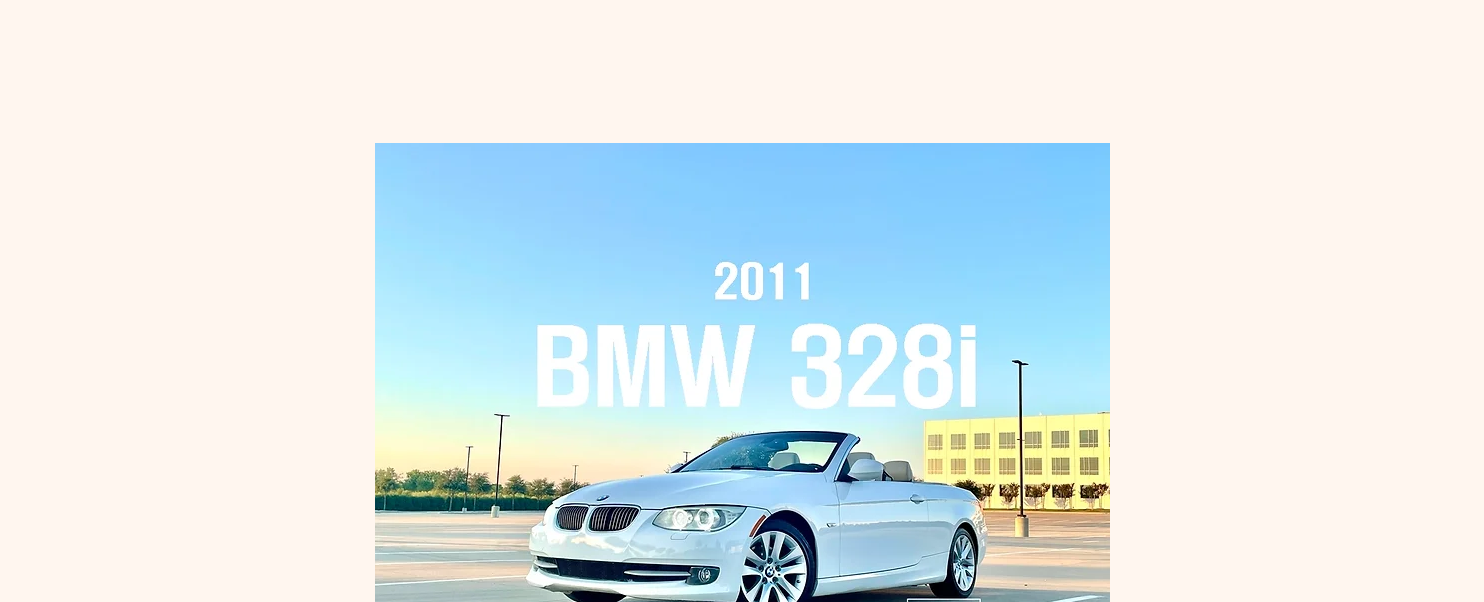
import math
import cairo

surface = cairo.ImageSurface(cairo.FORMAT_RGB24, 1484, 602)
c = cairo.Context(surface)
options = cairo.FontOptions()
options.set_hint_metrics(cairo.HINT_METRICS_OFF)
options.set_hint_style(cairo.HINT_STYLE_NONE)
c.set_font_options(options)
c.set_miter_limit(4)
def C(code):
 c.set_source_rgb(*(v / 255 for v in bytes.fromhex(code[-6:])))
def I(path, x, y, w, h):
 c.save()
 c.set_source_surface(cairo.ImageSurface.create_from_png(path), x, y)
 c.rectangle(x, y, w, h)
 c.fill()
 c.restore()
C('fff6ef')
c.paint()
I('1.png',375,143,735,459)
surface.write_to_png('o.png')
